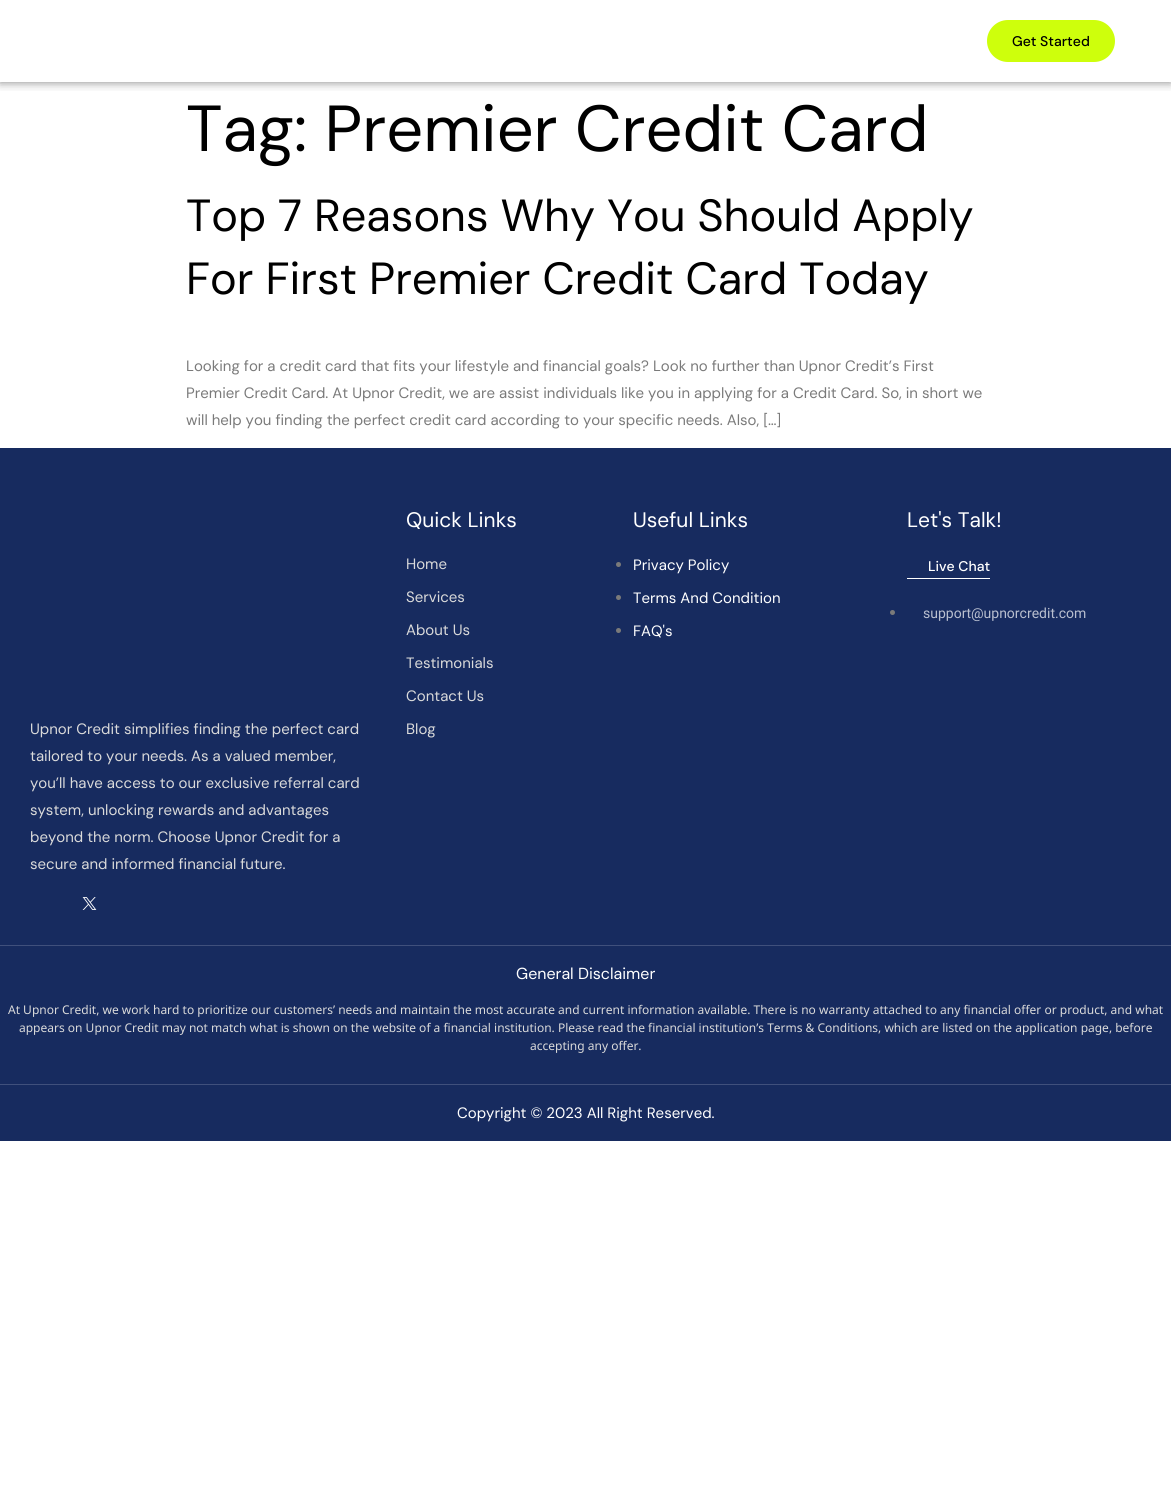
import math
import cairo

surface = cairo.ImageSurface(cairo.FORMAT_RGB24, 1171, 1496)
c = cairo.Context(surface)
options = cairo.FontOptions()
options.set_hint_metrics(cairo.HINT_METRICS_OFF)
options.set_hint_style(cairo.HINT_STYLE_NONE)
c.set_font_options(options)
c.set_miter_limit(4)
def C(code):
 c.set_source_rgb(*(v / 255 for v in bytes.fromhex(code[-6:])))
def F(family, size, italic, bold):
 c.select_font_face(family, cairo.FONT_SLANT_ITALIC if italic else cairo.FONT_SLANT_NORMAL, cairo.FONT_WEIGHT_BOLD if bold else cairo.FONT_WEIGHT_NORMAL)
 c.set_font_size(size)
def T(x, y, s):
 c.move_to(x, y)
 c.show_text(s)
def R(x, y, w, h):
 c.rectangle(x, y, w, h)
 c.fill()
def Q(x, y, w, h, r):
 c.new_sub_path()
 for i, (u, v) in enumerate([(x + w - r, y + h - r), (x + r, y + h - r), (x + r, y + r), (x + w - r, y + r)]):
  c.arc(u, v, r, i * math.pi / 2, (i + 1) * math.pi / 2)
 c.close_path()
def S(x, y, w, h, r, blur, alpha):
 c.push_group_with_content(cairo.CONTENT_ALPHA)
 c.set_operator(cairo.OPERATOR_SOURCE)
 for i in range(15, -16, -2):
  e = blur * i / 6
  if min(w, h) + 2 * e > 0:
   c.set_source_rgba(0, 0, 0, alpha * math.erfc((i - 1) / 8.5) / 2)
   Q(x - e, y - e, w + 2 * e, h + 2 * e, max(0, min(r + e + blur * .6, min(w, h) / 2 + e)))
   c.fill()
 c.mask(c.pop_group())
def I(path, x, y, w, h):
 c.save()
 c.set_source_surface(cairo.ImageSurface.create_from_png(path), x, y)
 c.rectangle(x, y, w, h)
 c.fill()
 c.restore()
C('ffffff')
c.paint()
c.save()
c.rectangle(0,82,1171,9)
c.clip()
C('000000')
S(0,0,1171,82,0,5,.5)
c.restore()
C('ceff0c')
Q(987,20,128,42,21)
c.fill()
F('DM Sans Medium',14,0,0)
C('000000')
T(1012,46,'Get Started')
F('DM Sans',65,0,0)
T(186,151,'Tag: Premier Credit Card')
F('DM Sans',45,0,0)
T(186,231,'Top 7 Reasons Why You Should Apply')
T(186,294,'For First Premier Credit Card Today')
F('DM Sans',15,0,0)
C('7a7a7a')
T(186,371,'Looking for a credit card that fits your lifestyle and financial goals? Look no further than Upnor Credit’s First')
T(186,398,'Premier Credit Card. At Upnor Credit, we are assist individuals like you in applying for a Credit Card. So, in short we')
T(186,425,'will help you finding the perfect credit card according to your specific needs. Also, […]')
C('172b5f')
R(0,448,1171,497)
F('DM Sans',21,0,0)
C('ffffff')
T(406,527,'Quick Links')
F('DM Sans',15,0,0)
C('dadada')
T(406,569,'Home')
T(406,602,'Services')
T(406,635,'About Us')
T(406,668,'Testimonials')
T(406,701,'Contact Us')
T(406,734,'Blog')
F('DM Sans',21,0,0)
C('ffffff')
T(633,527,'Useful Links')
C('7a7a7a')
c.new_path()
c.arc(618.5,564.5,2.5,0,2 * math.pi)
c.fill()
F('DM Sans',15,0,0)
C('ffffff')
T(633,570,'Privacy Policy')
C('7a7a7a')
c.new_path()
c.arc(618.5,597.5,2.5,0,2 * math.pi)
c.fill()
C('ffffff')
T(633,603,'Terms And Condition')
C('7a7a7a')
c.new_path()
c.arc(618.5,630.5,2.5,0,2 * math.pi)
c.fill()
C('ffffff')
T(633,636,'FAQ\'s')
F('DM Sans',21,0,0)
T(907,527,'Let\'s Talk!')
R(907,578,83,1)
F('DM Sans Medium',14,0,0)
T(928,571,'Live Chat')
C('7a7a7a')
c.new_path()
c.arc(892.5,612.5,2.5,0,2 * math.pi)
c.fill()
F('Roboto',14,0,0)
C('b9bfcf')
T(923,618,'support@upnorcredit.com')
F('DM Sans',15,0,0)
C('dadada')
T(30,734,'Upnor Credit simplifies finding the perfect card')
T(30,761,'tailored to your needs. As a valued member,')
T(30,788,'you’ll have access to our exclusive referral card')
T(30,815,'system, unlocking rewards and advantages')
T(30,842,'beyond the norm. Choose Upnor Credit for a')
T(30,869,'secure and informed financial future.')
I('1.png',82,897,15,13)
C('172b5f')
R(0,946,1171,138)
C('40507c')
R(0,945,1171,1)
F('DM Sans',16,0,0)
C('ffffff')
T(516,979,'General Disclaimer')
F('Noto Sans',12,0,0)
C('dadada')
T(8,1014,'At Upnor Credit, we work hard to prioritize our customers’ needs and maintain the most accurate and current information available. There is no warranty attached to any financial offer or product, and what')
T(19,1032,'appears on Upnor Credit may not match what is shown on the website of a financial institution. Please read the financial institution’s Terms & Conditions, which are listed on the application page, before')
T(530,1050,'accepting any offer.')
C('172b5f')
R(0,1085,1171,56)
C('40507c')
R(0,1084,1171,1)
F('DM Sans',15,0,0)
C('ffffff')
T(457,1118,'Copyright © 2023 All Right Reserved.')
surface.write_to_png('o.png')
